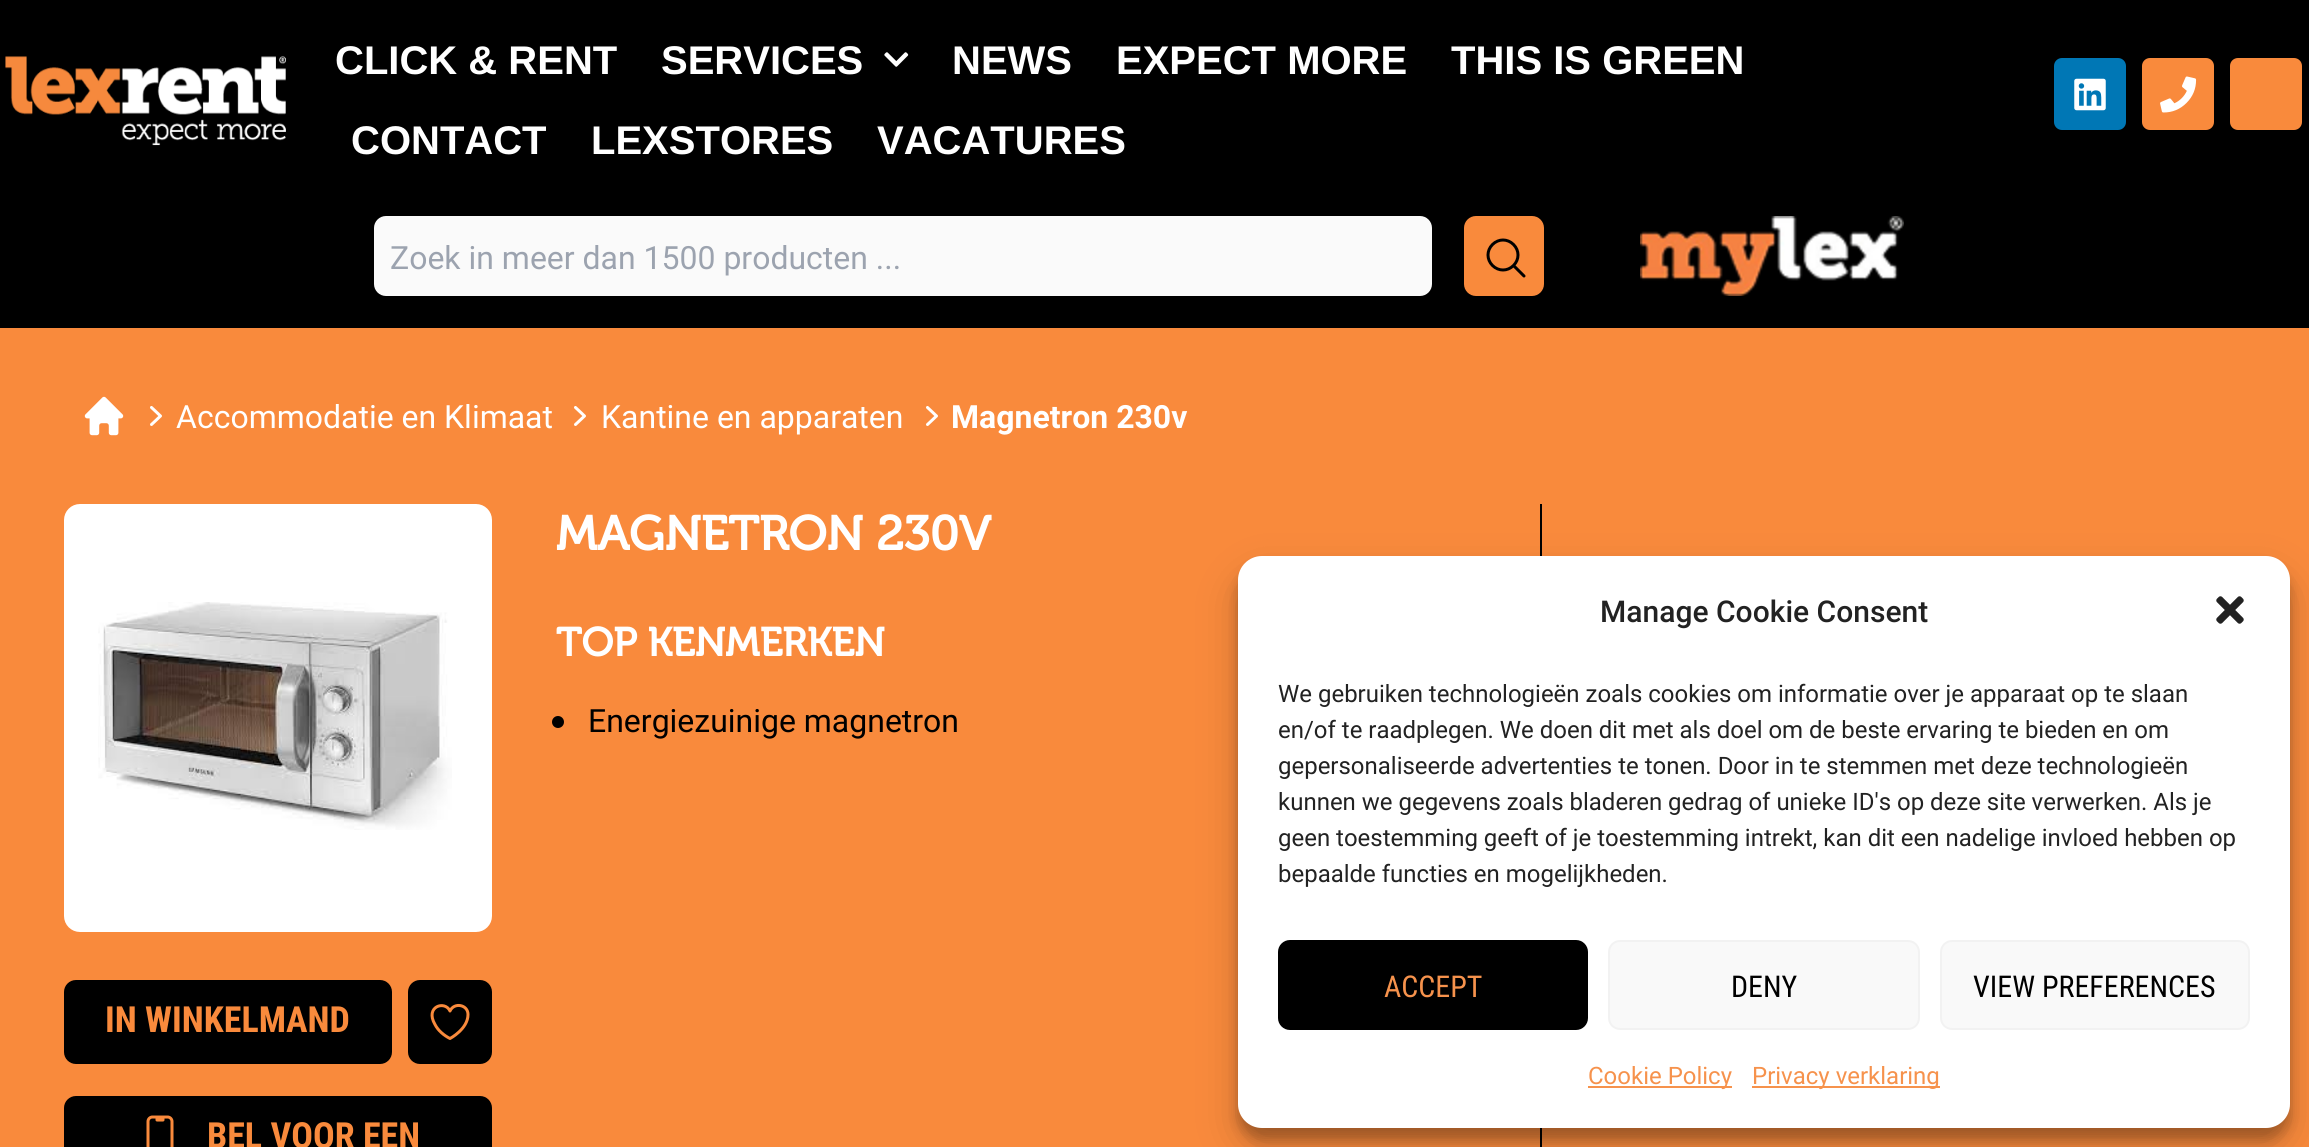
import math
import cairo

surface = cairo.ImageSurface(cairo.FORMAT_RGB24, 2309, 1147)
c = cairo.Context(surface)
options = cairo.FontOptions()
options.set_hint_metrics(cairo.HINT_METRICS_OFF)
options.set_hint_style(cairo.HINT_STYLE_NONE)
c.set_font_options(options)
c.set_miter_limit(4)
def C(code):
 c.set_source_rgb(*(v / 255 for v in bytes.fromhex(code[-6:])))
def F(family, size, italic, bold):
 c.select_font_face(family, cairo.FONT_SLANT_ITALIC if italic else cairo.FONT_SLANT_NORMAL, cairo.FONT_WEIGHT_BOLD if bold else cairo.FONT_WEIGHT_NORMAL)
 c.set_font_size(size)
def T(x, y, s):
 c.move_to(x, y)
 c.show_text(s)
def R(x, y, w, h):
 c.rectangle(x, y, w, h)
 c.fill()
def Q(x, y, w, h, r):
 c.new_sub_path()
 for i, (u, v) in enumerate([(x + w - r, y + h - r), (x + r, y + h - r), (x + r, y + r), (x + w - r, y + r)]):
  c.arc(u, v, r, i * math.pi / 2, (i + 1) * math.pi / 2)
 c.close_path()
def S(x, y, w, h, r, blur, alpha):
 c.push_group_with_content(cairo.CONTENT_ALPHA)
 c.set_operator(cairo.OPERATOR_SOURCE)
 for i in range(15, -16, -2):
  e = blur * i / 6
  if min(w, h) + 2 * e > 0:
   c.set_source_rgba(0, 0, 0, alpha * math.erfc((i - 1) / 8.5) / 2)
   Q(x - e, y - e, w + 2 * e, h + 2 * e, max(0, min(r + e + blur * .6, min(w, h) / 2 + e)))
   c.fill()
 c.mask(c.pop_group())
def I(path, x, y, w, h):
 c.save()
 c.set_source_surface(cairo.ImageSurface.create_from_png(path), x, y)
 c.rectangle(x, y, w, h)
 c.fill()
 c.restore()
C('f98a3c')
c.paint()
C('000000')
R(0,0,2309,328)
I('1.png',5,56,281,90)
F('Liberation Sans',40,0,1)
C('ffffff')
T(335,74,'CLICK & RENT')
T(661,74,'SERVICES')
I('2.png',884,52,25,15)
T(952,74,'NEWS')
T(1116,74,'EXPECT MORE')
T(1451,74,'THIS IS GREEN')
T(351,154,'CONTACT')
T(591,154,'LEXSTORES')
T(877,154,'VACATURES')
C('0077b5')
Q(2054,58,72,72,8)
c.fill()
I('3.png',2074,78,32,33)
C('f98a3c')
Q(2142,58,72,72,8)
c.fill()
I('4.png',2160,76,37,37)
Q(2230,58,72,72,8)
c.fill()
C('fafafa')
Q(374,216,1058,80,12)
c.fill()
F('Roboto',32,0,0)
C('9ca3af')
T(390,269,'Zoek in meer dan 1500 producten ...')
C('f98a3c')
Q(1464,216,80,80,12)
c.fill()
c.new_path()
c.move_to(1524,276)
c.line_to(1513.5,265.5)
c.move_to(1513.5,265.5)
c.curve_to(1519.5,259.5,1519.5,250.5,1513.5,244.5)
c.curve_to(1507.5,238.5,1498.5,238.5,1492.5,244.5)
c.curve_to(1486.5,250.5,1486.5,259.5,1492.5,265.5)
c.curve_to(1498.5,271.5,1507.5,271.5,1513.5,265.5)
c.close_path()
C('000000')
c.set_line_width(3)
c.set_line_cap(cairo.LINE_CAP_ROUND)
c.set_line_join(cairo.LINE_JOIN_ROUND)
c.stroke()
I('5.png',1640,216,264,80)
I('6.png',84,396,40,40)
I('7.png',150,406,12,20)
C('ffffff')
T(176,428,'Accommodatie en Klimaat')
I('7.png',574,406,12,20)
T(601,428,'Kantine en apparaten')
I('7.png',926,406,12,20)
F('Roboto',32,0,1)
T(951,428,'Magnetron 230v')
F('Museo',48,0,1)
T(556,550,'MAGNETRON 230V')
F('Museo',40,0,1)
T(556,656,'TOP KENMERKEN')
C('000000')
c.new_path()
c.arc(558,722,6,0,2 * math.pi)
c.fill()
F('Roboto',32,0,0)
T(588,732,'Energiezuinige magnetron')
C('ffffff')
Q(72,512,412,412,8)
c.fill_preserve()
c.set_line_width(16)
c.set_line_cap(cairo.LINE_CAP_BUTT)
c.set_line_join(cairo.LINE_JOIN_MITER)
c.stroke()
I('8.png',98,602,354,228)
C('000000')
Q(64,980,328,84,12)
c.fill()
F('Roboto Condensed',36,0,1)
C('f98a3c')
T(105,1032,'IN WINKELMAND')
C('000000')
Q(408,980,84,84,12)
c.fill()
c.new_path()
c.move_to(468,1014.5)
c.curve_to(468,1004.5,454,1002,450,1011)
c.curve_to(445,1000,424.5,1006.5,435,1024.5)
c.curve_to(438,1030.5,444,1035.5,450,1038.5)
c.curve_to(450,1038.5,468,1029,468,1014.5)
c.close_path()
C('f98a3c')
c.set_line_width(3)
c.set_line_cap(cairo.LINE_CAP_ROUND)
c.set_line_join(cairo.LINE_JOIN_ROUND)
c.stroke()
C('000000')
Q(64,1096,428,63,12)
c.fill()
I('9.png',146,1115,28,32)
C('f98a3c')
T(207,1148,'BEL VOOR EEN')
C('000000')
R(1540,504,2,643)
C('000000')
S(1238,568,1052,572,24,6,.23)
S(1238,576,1052,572,24,20,.19)
C('ffffff')
Q(1238,556,1052,572,24)
c.fill()
F('Roboto Medium',30,0,0)
C('222222')
T(1600,622,'Manage Cookie Consent')
I('10.png',2216,596,28,28)
F('Roboto',24,0,0)
T(1278,702,'We gebruiken technologieën zoals cookies om informatie over je apparaat op te slaan')
T(1278,738,'en/of te raadplegen. We doen dit met als doel om de beste ervaring te bieden en om')
T(1278,774,'gepersonaliseerde advertenties te tonen. Door in te stemmen met deze technologieën')
T(1278,810,'kunnen we gegevens zoals bladeren gedrag of unieke ID\'s op deze site verwerken. Als je')
T(1278,846,'geen toestemming geeft of je toestemming intrekt, kan dit een nadelige invloed hebben op')
T(1278,882,'bepaalde functies en mogelijkheden.')
C('000000')
Q(1279,941,308,88,11)
c.fill_preserve()
c.set_line_width(2)
c.set_line_cap(cairo.LINE_CAP_BUTT)
c.set_line_join(cairo.LINE_JOIN_MITER)
c.stroke()
F('Roboto Condensed',30,0,0)
C('f6924c')
T(1384,997,'ACCEPT')
C('f9f9f9')
Q(1609,941,310,88,11)
c.fill_preserve()
C('f2f2f2')
c.stroke()
C('000000')
T(1731,997,'DENY')
C('f9f9f9')
Q(1941,941,308,88,11)
c.fill_preserve()
C('f2f2f2')
c.stroke()
C('000000')
T(1973,997,'VIEW PREFERENCES')
C('f6924c')
R(1588,1086,144,2)
F('Roboto',24,0,0)
T(1588,1084,'Cookie Policy')
R(1752,1086,188,2)
T(1752,1084,'Privacy verklaring')
surface.write_to_png('o.png')
